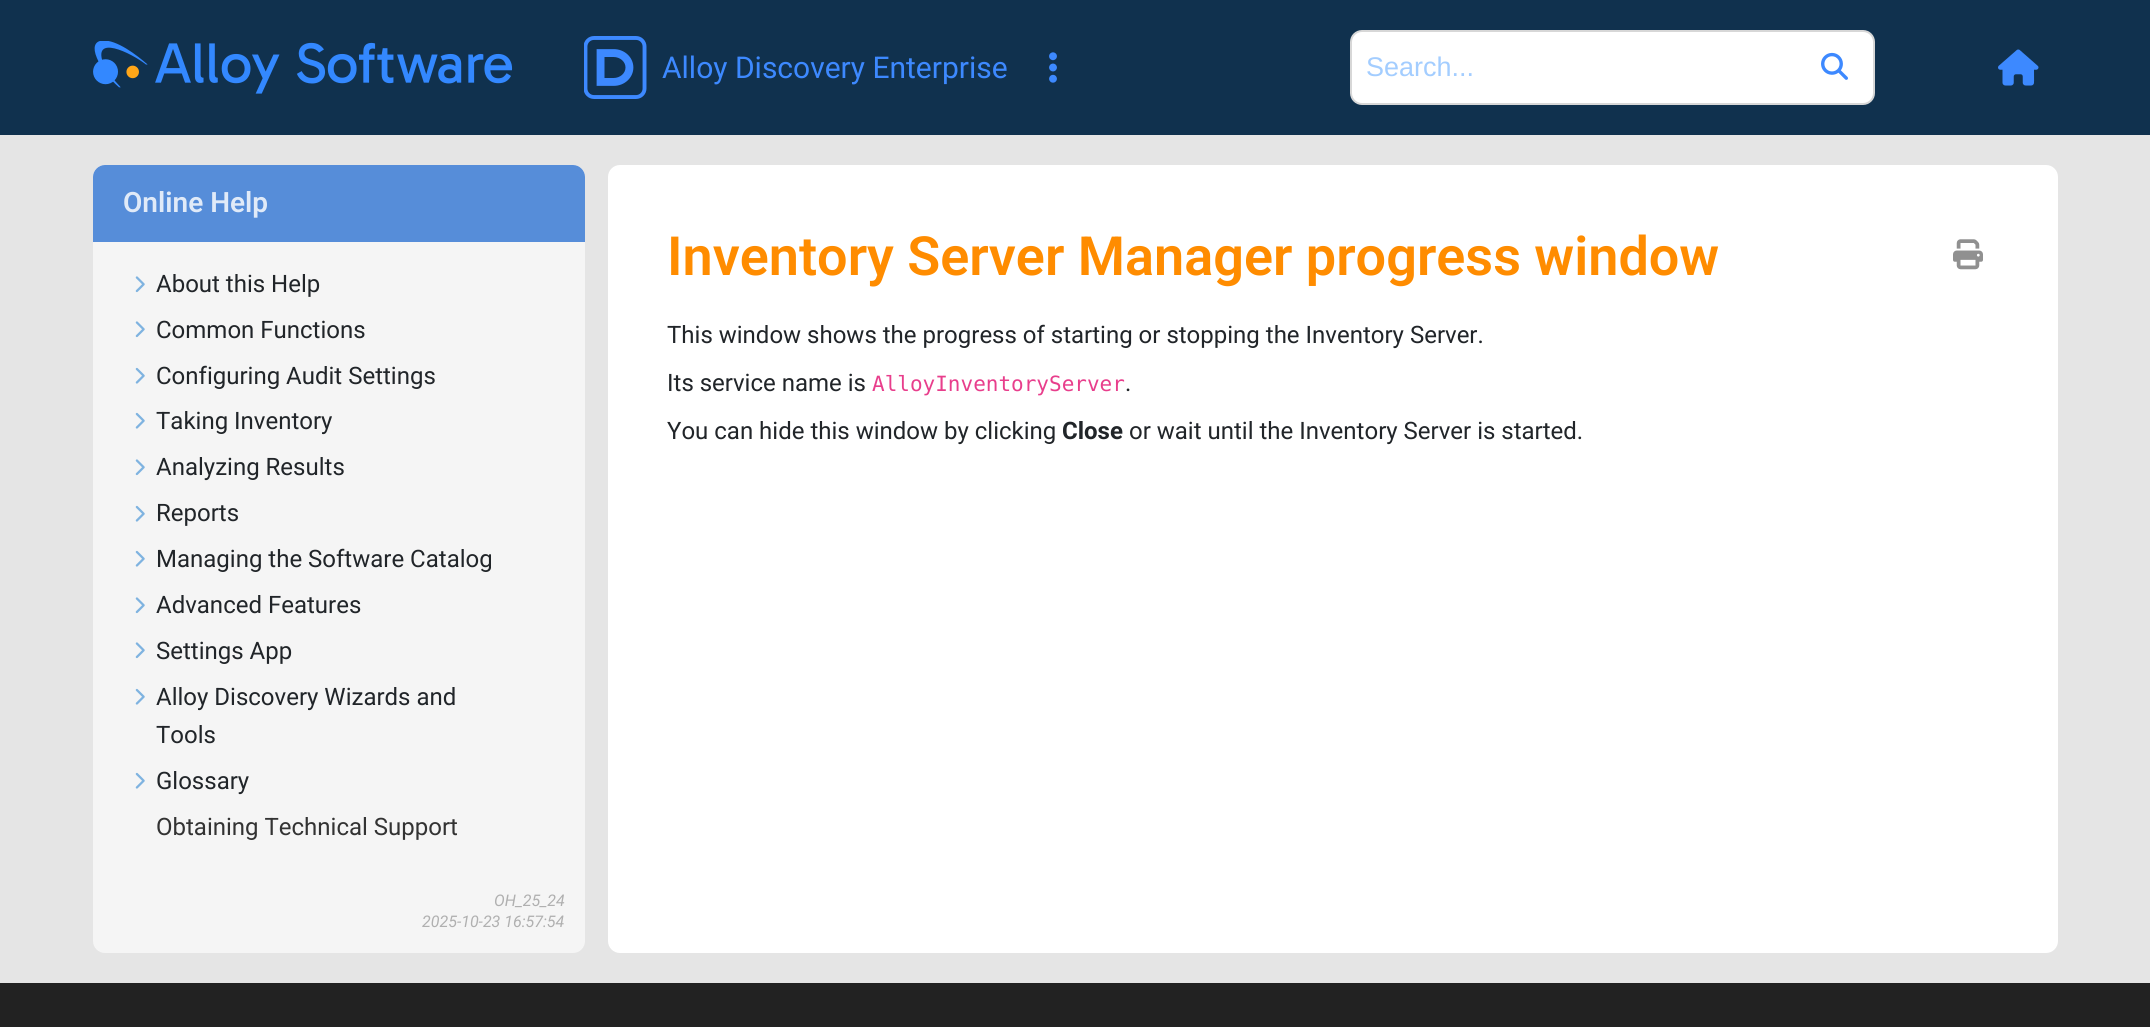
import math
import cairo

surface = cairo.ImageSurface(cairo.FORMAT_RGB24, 2150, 1027)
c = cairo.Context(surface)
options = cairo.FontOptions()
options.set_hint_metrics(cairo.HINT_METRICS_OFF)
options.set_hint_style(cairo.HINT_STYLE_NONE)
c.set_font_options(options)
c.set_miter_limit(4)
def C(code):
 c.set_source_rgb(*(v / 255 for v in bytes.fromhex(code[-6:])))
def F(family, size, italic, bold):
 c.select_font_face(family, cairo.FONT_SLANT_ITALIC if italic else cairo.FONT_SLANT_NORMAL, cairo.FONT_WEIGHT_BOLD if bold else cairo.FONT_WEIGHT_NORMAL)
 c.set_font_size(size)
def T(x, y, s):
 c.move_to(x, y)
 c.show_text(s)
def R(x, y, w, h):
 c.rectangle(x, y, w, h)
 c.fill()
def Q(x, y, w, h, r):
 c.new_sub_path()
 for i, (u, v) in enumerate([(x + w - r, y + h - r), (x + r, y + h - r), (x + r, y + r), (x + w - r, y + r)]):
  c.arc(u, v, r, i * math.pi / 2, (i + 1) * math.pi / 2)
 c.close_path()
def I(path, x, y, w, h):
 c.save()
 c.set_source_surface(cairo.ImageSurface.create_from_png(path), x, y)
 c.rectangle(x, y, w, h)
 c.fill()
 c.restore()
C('e5e5e5')
c.paint()
C('10314e')
R(0,0,2150,135)
I('1.png',93,41,420,53)
I('2.png',584,36,63,63)
F('Roboto',30,0,0)
C('3d89ff')
T(662,78,'Alloy Discovery Enterprise')
I('3.png',1049,52,8,31)
C('ffffff')
Q(1351,31,523,73,11)
c.fill_preserve()
C('d7d7d7')
c.stroke()
F('Liberation Sans',27,0,0)
C('a3cdff')
T(1366,76,'Search...')
I('4.png',1821,52,27,28)
I('5.png',1998,49,41,37)
C('f5f5f5')
Q(93,165,492,788,12)
c.fill()
C('568dd9')
c.new_path()
c.move_to(105,165)
c.line_to(573,165)
c.curve_to(579.5,165,585,170.5,585,177)
c.line_to(585,242)
c.line_to(93,242)
c.line_to(93,177)
c.curve_to(93,170.5,98.5,165,105,165)
c.close_path()
c.fill()
F('Roboto SemiBold',28,0,0)
C('e0eaf8')
T(123,212,'Online Help')
I('6.png',135,276,10,17)
F('Roboto',24,0,0)
C('212529')
T(156,292,'About this Help')
I('6.png',135,321,10,17)
T(156,338,'Common Functions')
I('7.png',135,367,10,17)
T(156,384,'Configuring Audit Settings')
I('7.png',135,412,10,17)
T(156,429,'Taking Inventory')
I('6.png',135,459,10,17)
T(156,475,'Analyzing Results')
I('7.png',135,505,10,17)
T(156,521,'Reports')
I('7.png',135,550,10,17)
T(156,567,'Managing the Software Catalog')
I('6.png',135,597,10,17)
T(156,613,'Advanced Features')
I('6.png',135,642,10,17)
T(156,659,'Settings App')
I('7.png',135,688,10,17)
T(156,705,'Alloy Discovery Wizards and')
T(156,743,'Tools')
I('7.png',135,772,10,17)
T(156,789,'Glossary')
C('333333')
T(156,835,'Obtaining Technical Support')
F('Roboto',16,1,0)
C('b0b0b0')
T(494,906,'OH_25_24')
T(422,927,'2025-10-23 16:57:54')
C('ffffff')
Q(608,165,1450,788,12)
c.fill()
F('Roboto SemiBold',54,0,0)
C('ff8c00')
T(667,275,'Inventory Server Manager progress window')
I('8.png',1953,239,30,31)
F('Roboto',24,0,0)
C('212529')
T(667,343,'This window shows the progress of starting or stopping the Inventory Server.')
T(667,391,'Its service name is')
F('DejaVu Sans Mono',21,0,0)
C('e83e8c')
T(872,391,'AlloyInventoryServer')
F('Roboto',24,0,0)
C('212529')
T(1125,391,'.')
T(667,439,'You can hide this window by clicking')
F('Roboto',24,0,1)
T(1062,439,'Close')
F('Roboto',24,0,0)
T(1129,439,'or wait until the Inventory Server is started.')
C('222222')
R(0,983,2150,44)
surface.write_to_png('o.png')
